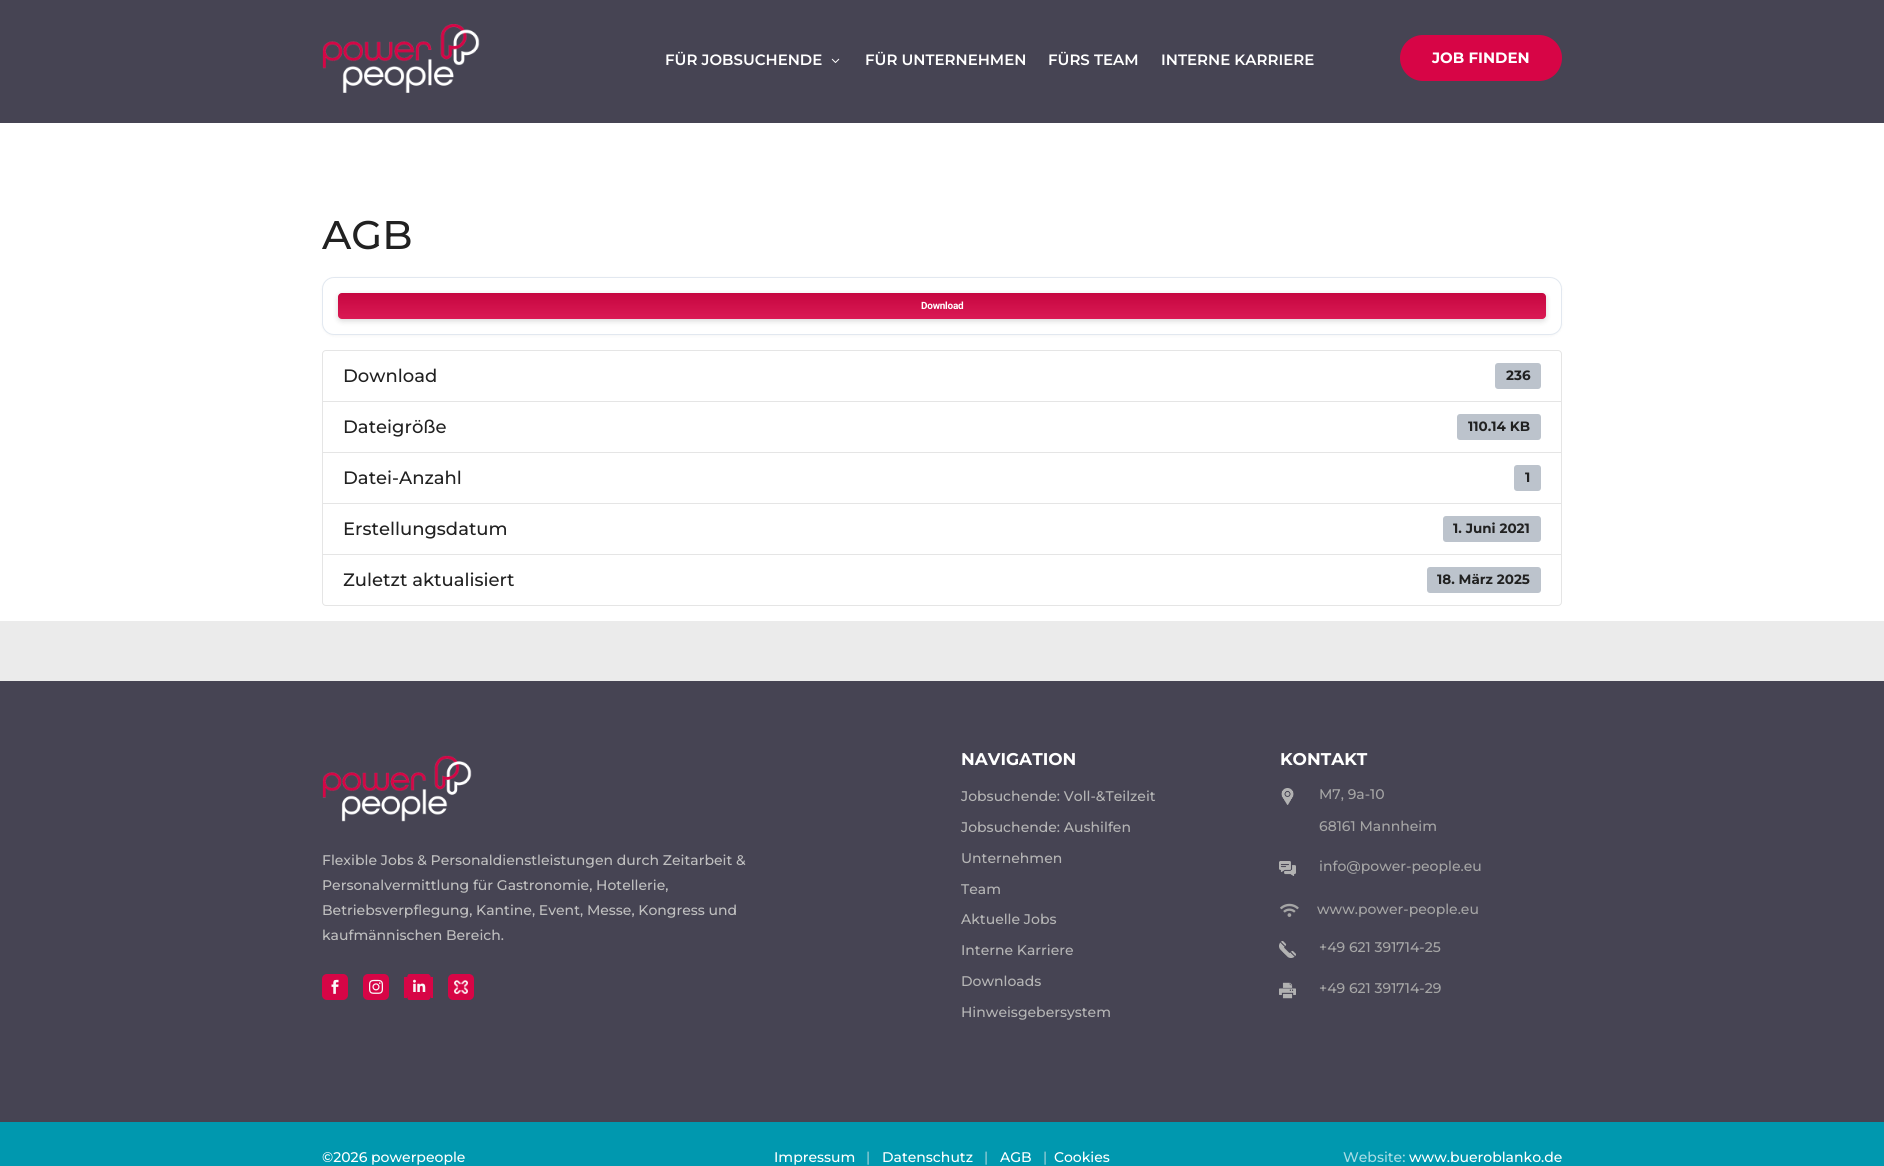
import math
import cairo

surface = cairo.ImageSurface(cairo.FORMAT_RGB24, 1884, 1166)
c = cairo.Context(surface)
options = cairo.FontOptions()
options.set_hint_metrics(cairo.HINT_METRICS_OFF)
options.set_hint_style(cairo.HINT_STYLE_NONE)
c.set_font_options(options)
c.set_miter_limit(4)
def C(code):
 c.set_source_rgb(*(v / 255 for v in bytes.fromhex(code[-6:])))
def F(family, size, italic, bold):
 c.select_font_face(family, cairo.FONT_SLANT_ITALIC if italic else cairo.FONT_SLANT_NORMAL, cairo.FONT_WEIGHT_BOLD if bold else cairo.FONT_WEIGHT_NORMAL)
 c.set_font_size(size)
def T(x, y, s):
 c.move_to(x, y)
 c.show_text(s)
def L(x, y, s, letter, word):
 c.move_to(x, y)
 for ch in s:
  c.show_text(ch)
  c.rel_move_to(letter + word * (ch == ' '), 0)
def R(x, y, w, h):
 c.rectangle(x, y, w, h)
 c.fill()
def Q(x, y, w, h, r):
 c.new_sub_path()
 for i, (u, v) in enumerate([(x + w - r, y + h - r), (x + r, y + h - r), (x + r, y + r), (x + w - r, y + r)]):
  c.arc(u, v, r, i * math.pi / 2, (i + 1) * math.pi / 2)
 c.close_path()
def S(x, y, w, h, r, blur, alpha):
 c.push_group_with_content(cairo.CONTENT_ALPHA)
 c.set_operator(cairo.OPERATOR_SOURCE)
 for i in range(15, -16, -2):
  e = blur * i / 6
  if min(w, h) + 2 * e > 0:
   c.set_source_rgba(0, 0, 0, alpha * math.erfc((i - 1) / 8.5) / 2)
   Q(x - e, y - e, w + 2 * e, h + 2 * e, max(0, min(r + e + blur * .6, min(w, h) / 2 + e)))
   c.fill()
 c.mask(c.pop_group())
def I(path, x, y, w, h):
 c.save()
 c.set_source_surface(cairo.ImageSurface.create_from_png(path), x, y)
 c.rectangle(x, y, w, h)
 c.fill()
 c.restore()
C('ebebeb')
c.paint()
C('464453')
R(0,0,1884,123)
I('1.png',322,24,158,69)
F('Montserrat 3 Thin',15,0,0)
C('ffffff')
T(665,65,'FÜR JOBSUCHENDE')
I('2.png',831,58,9,5)
T(865,65,'FÜR UNTERNEHMEN')
T(1048,65,'FÜRS TEAM')
T(1161,65,'INTERNE KARRIERE')
C('d70546')
Q(1401,36,160,44,22)
c.fill_preserve()
c.stroke()
F('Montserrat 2 Thin',15,0,0)
C('ffffff')
T(1432,63,'JOB FINDEN')
R(0,123,1884,498)
F('Montserrat Thin',40,0,0)
C('212121')
T(322,249,'AGB')
C('000000')
S(322,278,1240,58,12,1.5,.04)
C('ffffff')
Q(322.5,277.5,1239,57,11.5)
c.fill_preserve()
C('e2e8f0')
c.set_line_width(1)
c.stroke()
C('000000')
S(338,295,1208,26,4,3,.15)
C('d70645')
Q(338,293,1208,26,4)
c.fill()
gradient = cairo.LinearGradient(942,293,942,319)
gradient.add_color_stop_rgba(0,0,0,0,.08)
gradient.add_color_stop_rgba(1,1,1,1,.08)
c.set_source(gradient)
Q(338,293,1208,26,4)
c.fill()
F('Roboto',10,0,1)
C('ffffff')
L(921,309,'Download',-.25,0)
c.new_path()
c.move_to(326,350.5)
c.line_to(1558,350.5)
c.curve_to(1560,350.5,1561.5,352,1561.5,354)
c.line_to(1561.5,401.5)
c.line_to(322.5,401.5)
c.line_to(322.5,354)
c.curve_to(322.5,352,324,350.5,326,350.5)
c.close_path()
C('e5e5e5')
c.stroke()
F('Montserrat Thin',18,0,0)
C('212121')
T(343,382,'Download')
C('bcc3cc')
Q(1495,363,46,26,3)
c.fill()
F('Montserrat 2 Thin',13.5,0,0)
C('212121')
T(1506,380,'236')
c.rectangle(322.5,401.5,1239,51)
C('e5e5e5')
c.stroke()
F('Montserrat Thin',18,0,0)
C('212121')
T(343,433,'Dateigröße')
C('bcc3cc')
Q(1457,414,84,26,3)
c.fill()
F('Montserrat 2 Thin',13.5,0,0)
C('212121')
T(1468,431,'110.14 KB')
c.rectangle(322.5,452.5,1239,51)
C('e5e5e5')
c.stroke()
F('Montserrat Thin',18,0,0)
C('212121')
T(343,484,'Datei-Anzahl')
C('bcc3cc')
Q(1514,465,27,26,3)
c.fill()
F('Montserrat 2 Thin',13.5,0,0)
C('212121')
T(1525,482,'1')
c.rectangle(322.5,503.5,1239,51)
C('e5e5e5')
c.stroke()
F('Montserrat Thin',18,0,0)
C('212121')
T(343,535,'Erstellungsdatum')
C('bcc3cc')
Q(1443,516,98,26,3)
c.fill()
F('Montserrat 2 Thin',13.5,0,0)
C('212121')
T(1453,533,'1. Juni 2021')
C('ffffff')
c.new_path()
c.move_to(322.5,554.5)
c.line_to(1561.5,554.5)
c.line_to(1561.5,602)
c.curve_to(1561.5,604,1560,605.5,1558,605.5)
c.line_to(326,605.5)
c.curve_to(324,605.5,322.5,604,322.5,602)
c.close_path()
c.fill_preserve()
C('e5e5e5')
c.stroke()
F('Montserrat Thin',18,0,0)
C('212121')
T(343,586,'Zuletzt aktualisiert')
C('bcc3cc')
Q(1427,567,114,26,3)
c.fill()
F('Montserrat 2 Thin',13.5,0,0)
C('212121')
T(1437,584,'18. März 2025')
C('464453')
R(0,681,1884,441)
I('3.png',322,755,150,67)
F('Montserrat Thin',14,0,0)
C('bfbfbf')
T(322,865,'Flexible Jobs & Personaldienstleistungen durch Zeitarbeit &')
T(322,890,'Personalvermittlung für Gastronomie, Hotellerie,')
T(322,915,'Betriebsverpflegung, Kantine, Event, Messe, Kongress und')
T(322,940,'kaufmännischen Bereich.')
C('d70546')
Q(322,974,26,26,5)
c.fill()
I('4.png',331,979,8,15)
Q(363,974,26,26,5)
c.fill()
I('5.png',369,979,14,15)
c.new_path()
c.move_to(409,974)
c.line_to(428,974)
c.curve_to(429.5,974,431,976,431,979)
c.line_to(431,995)
c.curve_to(431,998,429.5,1000,428,1000)
c.line_to(409,1000)
c.curve_to(408,1000,407,998,407,995)
c.line_to(407,979)
c.curve_to(407,976,408,974,409,974)
c.close_path()
c.fill()
R(431,977,2,21)
R(404,977,3,21)
I('6.png',413,979,13,13)
Q(448,974,26,26,5)
c.fill()
I('7.png',454,980,14,14)
F('Montserrat 2 Thin',17,0,0)
C('ffffff')
T(961,765,'NAVIGATION')
F('Montserrat Thin',14,0,0)
C('b5b5b5')
T(961,801,'Jobsuchende: Voll-&Teilzeit')
T(961,832,'Jobsuchende: Aushilfen')
T(961,863,'Unternehmen')
T(961,894,'Team')
T(961,924,'Aktuelle Jobs')
T(961,955,'Interne Karriere')
T(961,986,'Downloads')
T(961,1017,'Hinweisgebersystem')
F('Montserrat 2 Thin',17,0,0)
C('ffffff')
T(1280,765,'KONTAKT')
I('8.png',1281,788,13,17)
F('Montserrat Thin',14,0,0)
C('a5a5a5')
T(1319,799,'M7, 9a-10')
T(1319,831,'68161 Mannheim')
I('9.png',1279,861,17,15)
T(1319,871,'info@power-people.eu')
I('10.png',1280,903,19,14)
T(1317,914,'www.power-people.eu')
I('11.png',1279,941,17,17)
T(1319,952,'+49 621 391714-25')
I('12.png',1279,982,17,17)
T(1319,993,'+49 621 391714-29')
C('0098af')
R(0,1122,1884,44)
C('ffffff')
T(322,1162,'©2026 powerpeople')
T(774,1162,'Impressum')
C('99ced6')
T(866,1162,'|')
C('ffffff')
T(882,1162,'Datenschutz')
C('99ced6')
T(984,1162,'|')
C('ffffff')
T(1000,1162,'AGB')
C('99ced6')
T(1043,1162,'|')
C('ffffff')
T(1054,1162,'Cookies')
C('a8dce4')
T(1343,1162,'Website:')
C('ffffff')
T(1409,1162,'www.bueroblanko.de')
surface.write_to_png('o.png')
